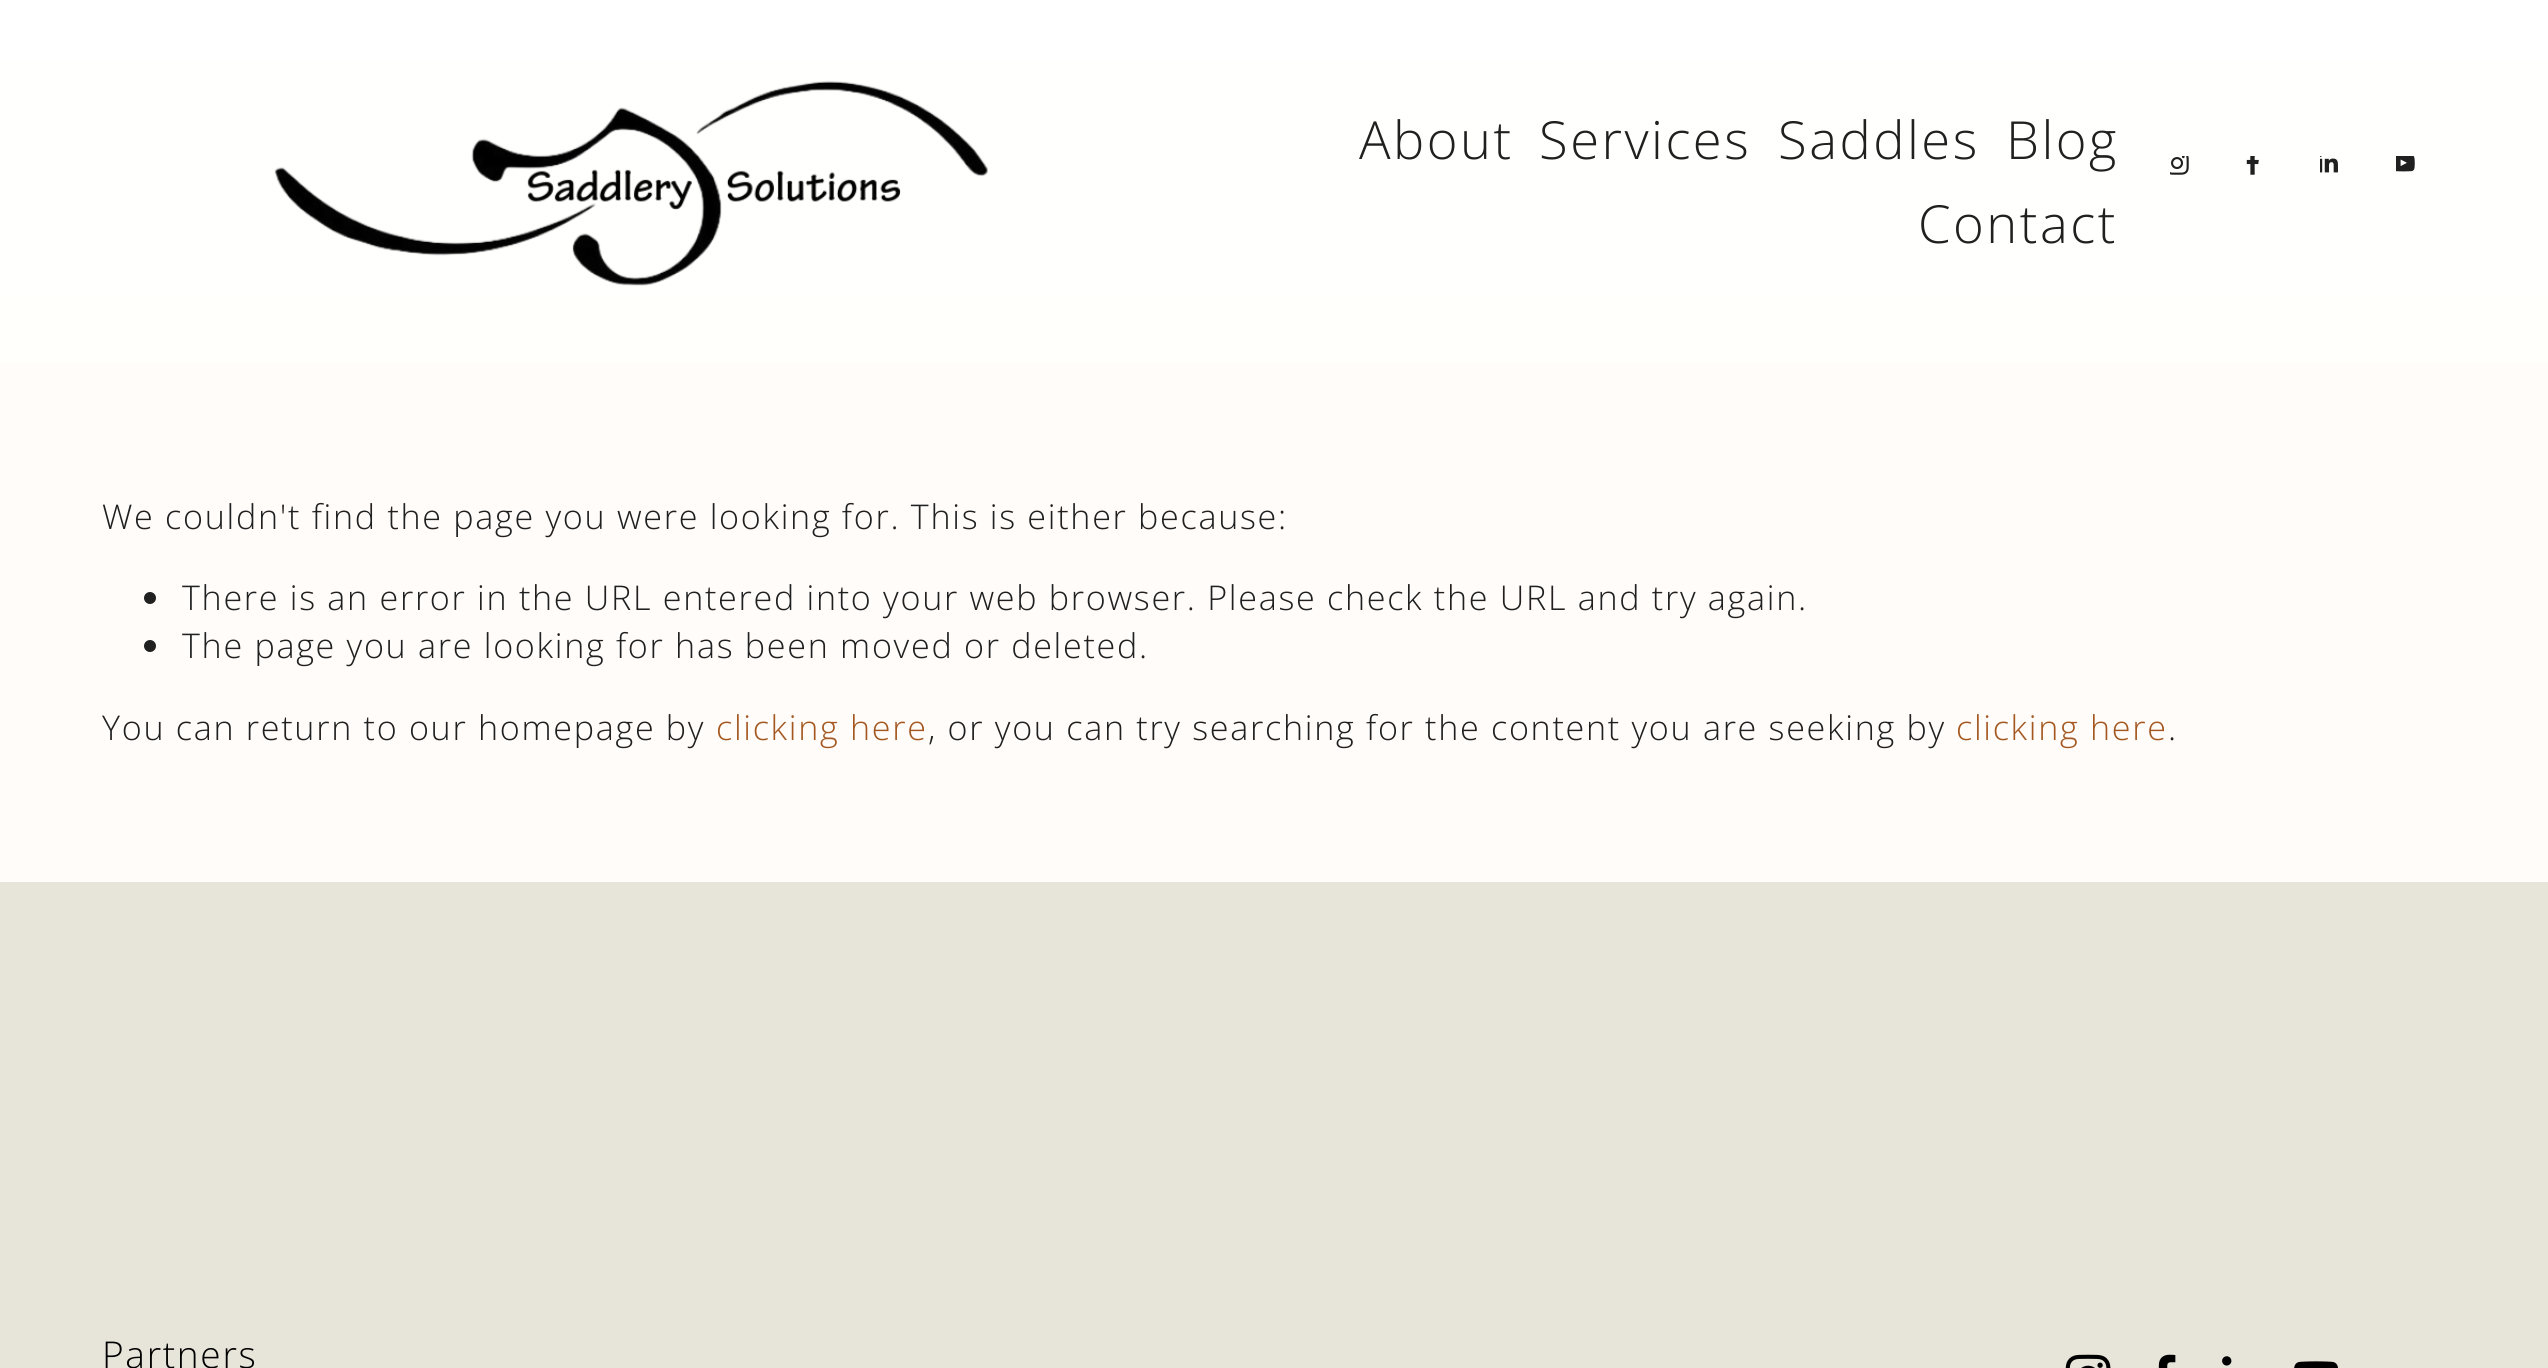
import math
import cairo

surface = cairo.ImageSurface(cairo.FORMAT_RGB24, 2548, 1368)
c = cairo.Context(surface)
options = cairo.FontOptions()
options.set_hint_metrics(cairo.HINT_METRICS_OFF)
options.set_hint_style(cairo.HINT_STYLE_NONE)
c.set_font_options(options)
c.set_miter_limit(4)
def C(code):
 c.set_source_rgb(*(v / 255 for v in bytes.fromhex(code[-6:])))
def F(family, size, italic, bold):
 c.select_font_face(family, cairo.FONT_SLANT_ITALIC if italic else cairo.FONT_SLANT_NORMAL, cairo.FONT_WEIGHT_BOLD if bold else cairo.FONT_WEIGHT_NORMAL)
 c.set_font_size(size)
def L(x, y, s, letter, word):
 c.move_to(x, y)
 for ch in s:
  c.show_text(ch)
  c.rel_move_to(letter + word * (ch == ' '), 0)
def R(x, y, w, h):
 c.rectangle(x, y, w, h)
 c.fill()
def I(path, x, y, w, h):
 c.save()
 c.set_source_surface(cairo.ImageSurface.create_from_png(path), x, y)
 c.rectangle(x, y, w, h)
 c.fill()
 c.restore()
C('fffcfa')
c.paint()
gradient = cairo.LinearGradient(1274,0,1274,362)
gradient.add_color_stop_rgba(0,1,1,1,1)
gradient.add_color_stop_rgba(1,1,1,0.988,1)
c.set_source(gradient)
R(0,0,2548,362)
I('1.png',274,80,714,206)
F('Open Sans Light',52.5,0,0)
C('202020')
L(1359,159,'About',2.5,0)
L(1539,159,'Services',2.5,0)
L(1778,159,'Saddles',2.5,0)
L(2006,159,'Blog',2.5,0)
L(1918,243,'Contact',2.5,0)
I('2.png',2170,156,19,19)
I('3.png',2246,156,13,19)
I('4.png',2320,156,18,17)
I('5.png',2396,156,19,16)
F('Open Sans Light',34.1,0,0)
L(102,529,'We couldn\'t find the page you were looking for. This is either because:',1.7,0)
c.new_path()
c.arc(150,598,6,0,2 * math.pi)
c.fill()
L(182,610,'There is an error in the URL entered into your web browser. Please check the URL and try again.',1.7,0)
c.new_path()
c.arc(150,646,6,0,2 * math.pi)
c.fill()
L(182,658,'The page you are looking for has been moved or deleted.',1.7,0)
L(102,740,'You can return to our homepage by',1.7,0)
C('a45820')
L(716,740,'clicking here',1.7,0)
C('202020')
L(928,740,', or you can try searching for the',1.7,0)
L(1491,740,'content you are seeking by',1.7,0)
C('a45820')
L(1956,740,'clicking here',1.7,0)
C('202020')
L(2168,740,'.',1.7,0)
C('e7e5d9')
R(0,882,2548,486)
F('Open Sans Light',37,0,0)
C('000000')
L(102,1368,'Partners',1.7,0)
I('6.png',2065,1354,46,14)
I('7.png',2158,1354,18,14)
I('8.png',2222,1356,10,10)
I('9.png',2294,1361,44,7)
surface.write_to_png('o.png')
